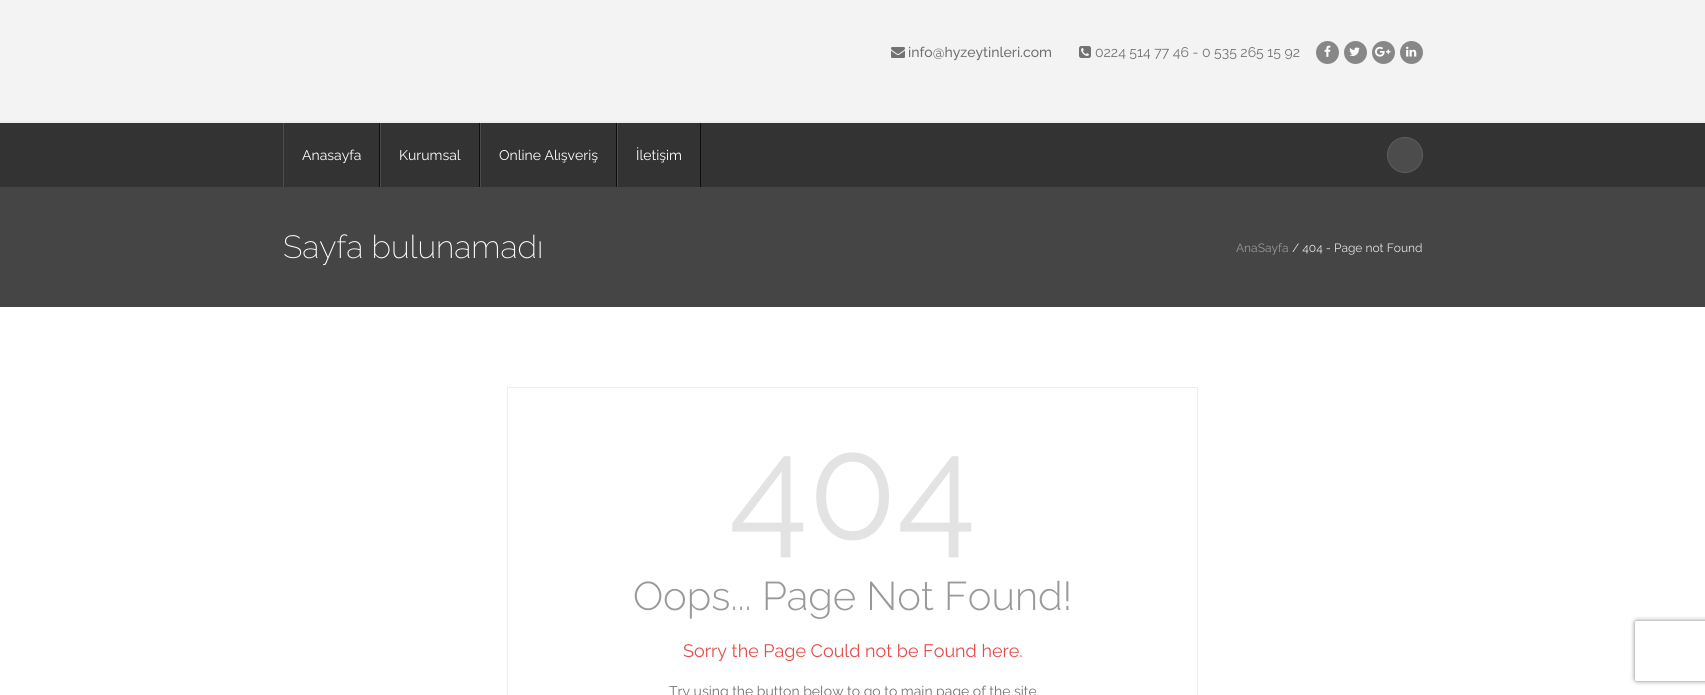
import math
import cairo

surface = cairo.ImageSurface(cairo.FORMAT_RGB24, 1705, 695)
c = cairo.Context(surface)
options = cairo.FontOptions()
options.set_hint_metrics(cairo.HINT_METRICS_OFF)
options.set_hint_style(cairo.HINT_STYLE_NONE)
c.set_font_options(options)
c.set_miter_limit(4)
def C(code):
 c.set_source_rgb(*(v / 255 for v in bytes.fromhex(code[-6:])))
def F(family, size, italic, bold):
 c.select_font_face(family, cairo.FONT_SLANT_ITALIC if italic else cairo.FONT_SLANT_NORMAL, cairo.FONT_WEIGHT_BOLD if bold else cairo.FONT_WEIGHT_NORMAL)
 c.set_font_size(size)
def T(x, y, s):
 c.move_to(x, y)
 c.show_text(s)
def R(x, y, w, h):
 c.rectangle(x, y, w, h)
 c.fill()
def Q(x, y, w, h, r):
 c.new_sub_path()
 for i, (u, v) in enumerate([(x + w - r, y + h - r), (x + r, y + h - r), (x + r, y + r), (x + w - r, y + r)]):
  c.arc(u, v, r, i * math.pi / 2, (i + 1) * math.pi / 2)
 c.close_path()
def S(x, y, w, h, r, blur, alpha):
 c.push_group_with_content(cairo.CONTENT_ALPHA)
 c.set_operator(cairo.OPERATOR_SOURCE)
 for i in range(15, -16, -2):
  e = blur * i / 6
  if min(w, h) + 2 * e > 0:
   c.set_source_rgba(0, 0, 0, alpha * math.erfc((i - 1) / 8.5) / 2)
   Q(x - e, y - e, w + 2 * e, h + 2 * e, max(0, min(r + e + blur * .6, min(w, h) / 2 + e)))
   c.fill()
 c.mask(c.pop_group())
def I(path, x, y, w, h):
 c.save()
 c.set_source_surface(cairo.ImageSurface.create_from_png(path), x, y)
 c.rectangle(x, y, w, h)
 c.fill()
 c.restore()
C('ffffff')
c.paint()
C('f3f3f3')
R(0,0,1705,123)
I('1.png',891,47,14,11)
F('Raleway Medium',14,0,0)
C('727272')
T(908,57,'info@hyzeytinleri.com')
I('2.png',1079,46,12,12)
F('Raleway',14,0,0)
T(1095,57,'0224 514 77 46 - 0 535 265 15 92')
C('878787')
c.new_path()
c.arc(1327.5,52.5,11.5,0,2 * math.pi)
c.fill()
I('3.png',1324,45,7,12)
c.arc(1355.5,52.5,11.5,0,2 * math.pi)
c.fill()
I('4.png',1349,47,11,9)
c.arc(1383.5,52.5,11.5,0,2 * math.pi)
c.fill()
I('5.png',1375,46,16,11)
c.arc(1411.5,52.5,11.5,0,2 * math.pi)
c.fill()
I('6.png',1406,46,11,11)
C('000000')
S(0,124,1705,64,0,2.5,.1)
C('333333')
R(0,123,1705,64)
C('0e0e0e')
R(379,123,1,64)
C('4c4c4c')
R(283,123,1,64)
C('ffffff')
T(302,160,'Anasayfa')
C('0e0e0e')
R(479,123,1,64)
C('4c4c4c')
R(380,123,1,64)
C('ffffff')
T(399,160,'Kurumsal')
C('0e0e0e')
R(616,123,1,64)
C('4c4c4c')
R(480,123,1,64)
C('ffffff')
T(499,160,'Online Alışveriş')
C('0e0e0e')
R(700,123,1,64)
C('4c4c4c')
R(617,123,1,64)
C('ffffff')
T(636,160,'İletişim')
C('4c4c4c')
c.new_path()
c.arc(1405,155,17.5,0,2 * math.pi)
c.fill_preserve()
C('5c5c5c')
c.set_line_width(1)
c.stroke()
C('454545')
R(0,187,1705,120)
F('Raleway ExtraLight',32,0,0)
C('ffffff')
T(283,258,'Sayfa bulunamadı')
F('Raleway',12,0,0)
C('999999')
T(1236,252,'AnaSayfa')
C('e3e3e3')
T(1292,252,'/ 404 - Page not Found')
C('eeeeee')
R(507,387,691,1)
R(1197,387,1,308)
R(507,387,1,308)
F('Raleway',145,0,0)
C('e3e3e3')
T(729,539,'404')
F('Raleway Light',40,0,0)
C('999999')
T(633,610,'Oops... Page Not Found!')
F('Raleway',18,0,0)
C('e54c4c')
T(683,657,'Sorry the Page Could not be Found here.')
F('Raleway',14,0,0)
C('727272')
T(669,696,'Try using the button below to go to main page of the site')
c.save()
c.set_fill_rule(cairo.FILL_RULE_EVEN_ODD)
c.new_path()
c.move_to(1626,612)
c.line_to(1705,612)
c.line_to(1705,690)
c.line_to(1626,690)
c.close_path()
c.move_to(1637,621)
c.line_to(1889,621)
c.curve_to(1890,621,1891,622,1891,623)
c.line_to(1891,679)
c.curve_to(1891,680,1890,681,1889,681)
c.line_to(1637,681)
c.curve_to(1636,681,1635,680,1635,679)
c.line_to(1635,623)
c.curve_to(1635,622,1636,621,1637,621)
c.close_path()
c.clip()
C('808080')
S(1635,621,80,60,2,2.5,1)
c.restore()
surface.write_to_png('o.png')
